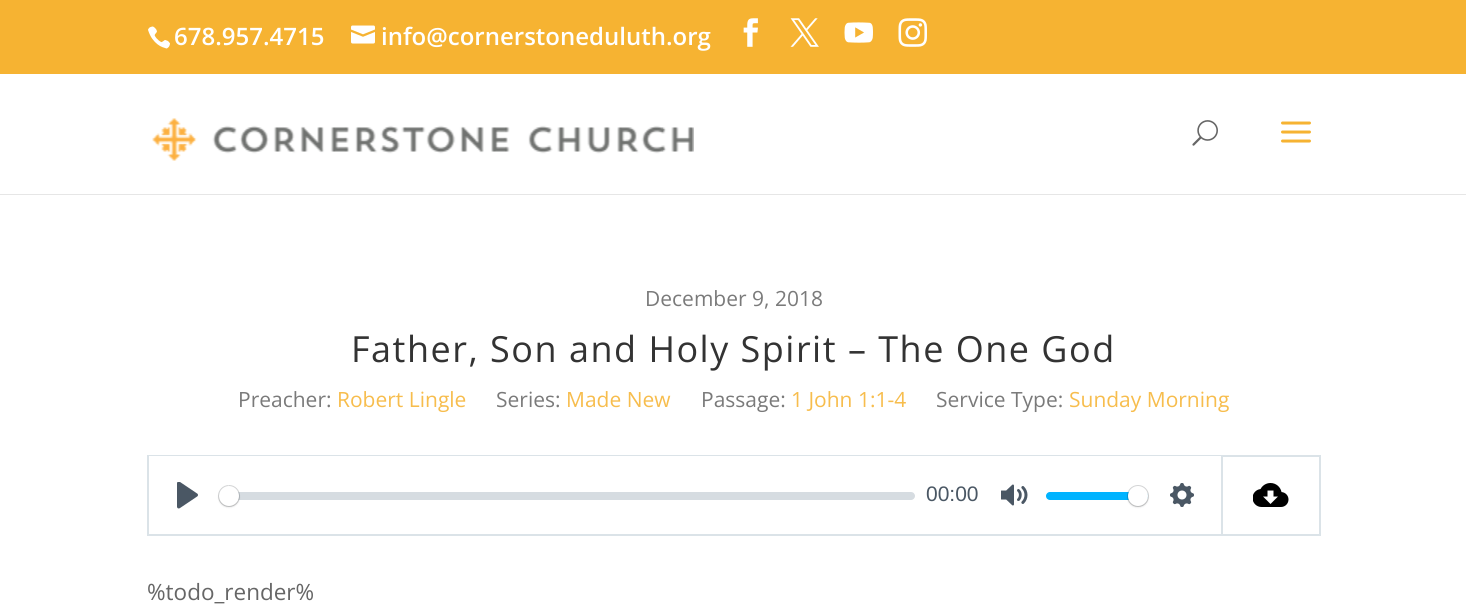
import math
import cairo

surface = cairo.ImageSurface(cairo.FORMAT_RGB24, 1466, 611)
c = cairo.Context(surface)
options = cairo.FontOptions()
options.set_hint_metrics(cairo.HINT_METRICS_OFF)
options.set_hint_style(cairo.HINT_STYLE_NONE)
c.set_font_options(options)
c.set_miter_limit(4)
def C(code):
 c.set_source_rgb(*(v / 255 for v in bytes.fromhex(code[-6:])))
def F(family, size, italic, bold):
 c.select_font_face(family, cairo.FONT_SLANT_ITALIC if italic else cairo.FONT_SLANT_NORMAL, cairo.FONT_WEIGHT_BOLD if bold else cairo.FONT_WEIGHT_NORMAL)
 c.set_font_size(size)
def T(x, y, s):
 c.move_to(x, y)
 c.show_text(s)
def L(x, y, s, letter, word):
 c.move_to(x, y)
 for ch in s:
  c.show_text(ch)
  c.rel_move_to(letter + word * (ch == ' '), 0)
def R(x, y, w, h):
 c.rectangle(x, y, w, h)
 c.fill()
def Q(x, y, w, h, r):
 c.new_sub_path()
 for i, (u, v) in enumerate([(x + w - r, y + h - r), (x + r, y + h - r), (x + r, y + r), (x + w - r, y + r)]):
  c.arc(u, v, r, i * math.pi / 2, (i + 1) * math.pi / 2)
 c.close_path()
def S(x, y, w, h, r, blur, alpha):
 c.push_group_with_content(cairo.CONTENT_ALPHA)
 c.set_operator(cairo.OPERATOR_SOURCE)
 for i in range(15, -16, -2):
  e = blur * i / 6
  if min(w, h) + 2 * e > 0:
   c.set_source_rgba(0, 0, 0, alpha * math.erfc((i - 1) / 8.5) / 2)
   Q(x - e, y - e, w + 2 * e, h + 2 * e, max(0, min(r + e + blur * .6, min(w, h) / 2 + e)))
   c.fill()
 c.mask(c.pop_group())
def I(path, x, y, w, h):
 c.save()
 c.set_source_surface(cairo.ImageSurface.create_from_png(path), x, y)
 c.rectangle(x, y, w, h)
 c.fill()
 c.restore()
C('ffffff')
c.paint()
C('f6b332')
R(0,0,1466,74)
I('1.png',148,26,22,23)
F('Open Sans SemiBold',24,0,0)
C('ffffff')
T(174,45,'678.957.4715')
I('2.png',351,25,24,19)
T(381,45,'info@cornerstoneduluth.org')
I('3.png',743,18,15,29)
I('4.png',790,18,29,29)
I('5.png',844,22,29,21)
I('6.png',898,18,29,29)
C('e6e6e6')
R(0,194,1466,1)
I('7.png',152,118,542,43)
I('8.png',1192,120,26,26)
I('9.png',1281,121,30,22)
F('Open Sans',21,0,0)
C('7a7a7a')
T(645,306,'December 9, 2018')
F('Open Sans',36,0,0)
C('333333')
L(351,362,'Father, Son and Holy Spirit – The One God',1.5,0)
F('Open Sans',21,0,0)
C('7a7a7a')
T(238,407,'Preacher:')
C('f7bd4d')
T(337,407,'Robert Lingle')
C('7a7a7a')
T(496,407,'Series:')
C('f7bd4d')
T(566,407,'Made New')
C('7a7a7a')
T(701,407,'Passage:')
C('f7bd4d')
T(791,407,'1 John 1:1-4')
C('7a7a7a')
T(936,407,'Service Type:')
C('f7bd4d')
T(1069,407,'Sunday Morning')
c.rectangle(148,456,1074,79)
C('dbe3e8')
c.stroke()
C('ffffff')
R(149,456,1072,1)
I('10.png',177,482,21,27)
c.set_source_rgba(0.757,0.788,0.82,0.66)
Q(219,492,696,8,4)
c.fill()
c.arc(229,496,10,0,2 * math.pi)
c.set_source_rgba(0.137,0.161,0.184,0.2)
c.stroke()
C('000000')
S(219,488,20,19,9.5,1,.15)
C('ffffff')
c.new_path()
c.move_to(223.5,481)
c.line_to(233,481)
c.line_to(228.5,485.5)
c.close_path()
c.fill()
c.arc(229,496,10,0,2 * math.pi)
c.fill()
F('Liberation Sans',21,0,0)
C('4a5764')
T(926,501,'00:00')
I('11.png',1001,484,27,22)
C('00b3ff')
Q(1046,492,102,8,4)
c.fill()
c.arc(1138,496,10,0,2 * math.pi)
c.set_source_rgba(0.137,0.161,0.184,0.2)
c.stroke()
C('000000')
S(1128,488,20,19,9.5,1,.15)
C('ffffff')
c.arc(1138,496,10,0,2 * math.pi)
c.fill()
I('12.png',1170,483,24,24)
C('dbe3e8')
R(1223,455,97,2)
R(1319,455,2,81)
R(1223,534,97,2)
I('13.png',1253,483,36,24)
F('Open Sans',22.5,0,0)
C('666666')
T(147,600,'%todo_render%')
surface.write_to_png('o.png')
